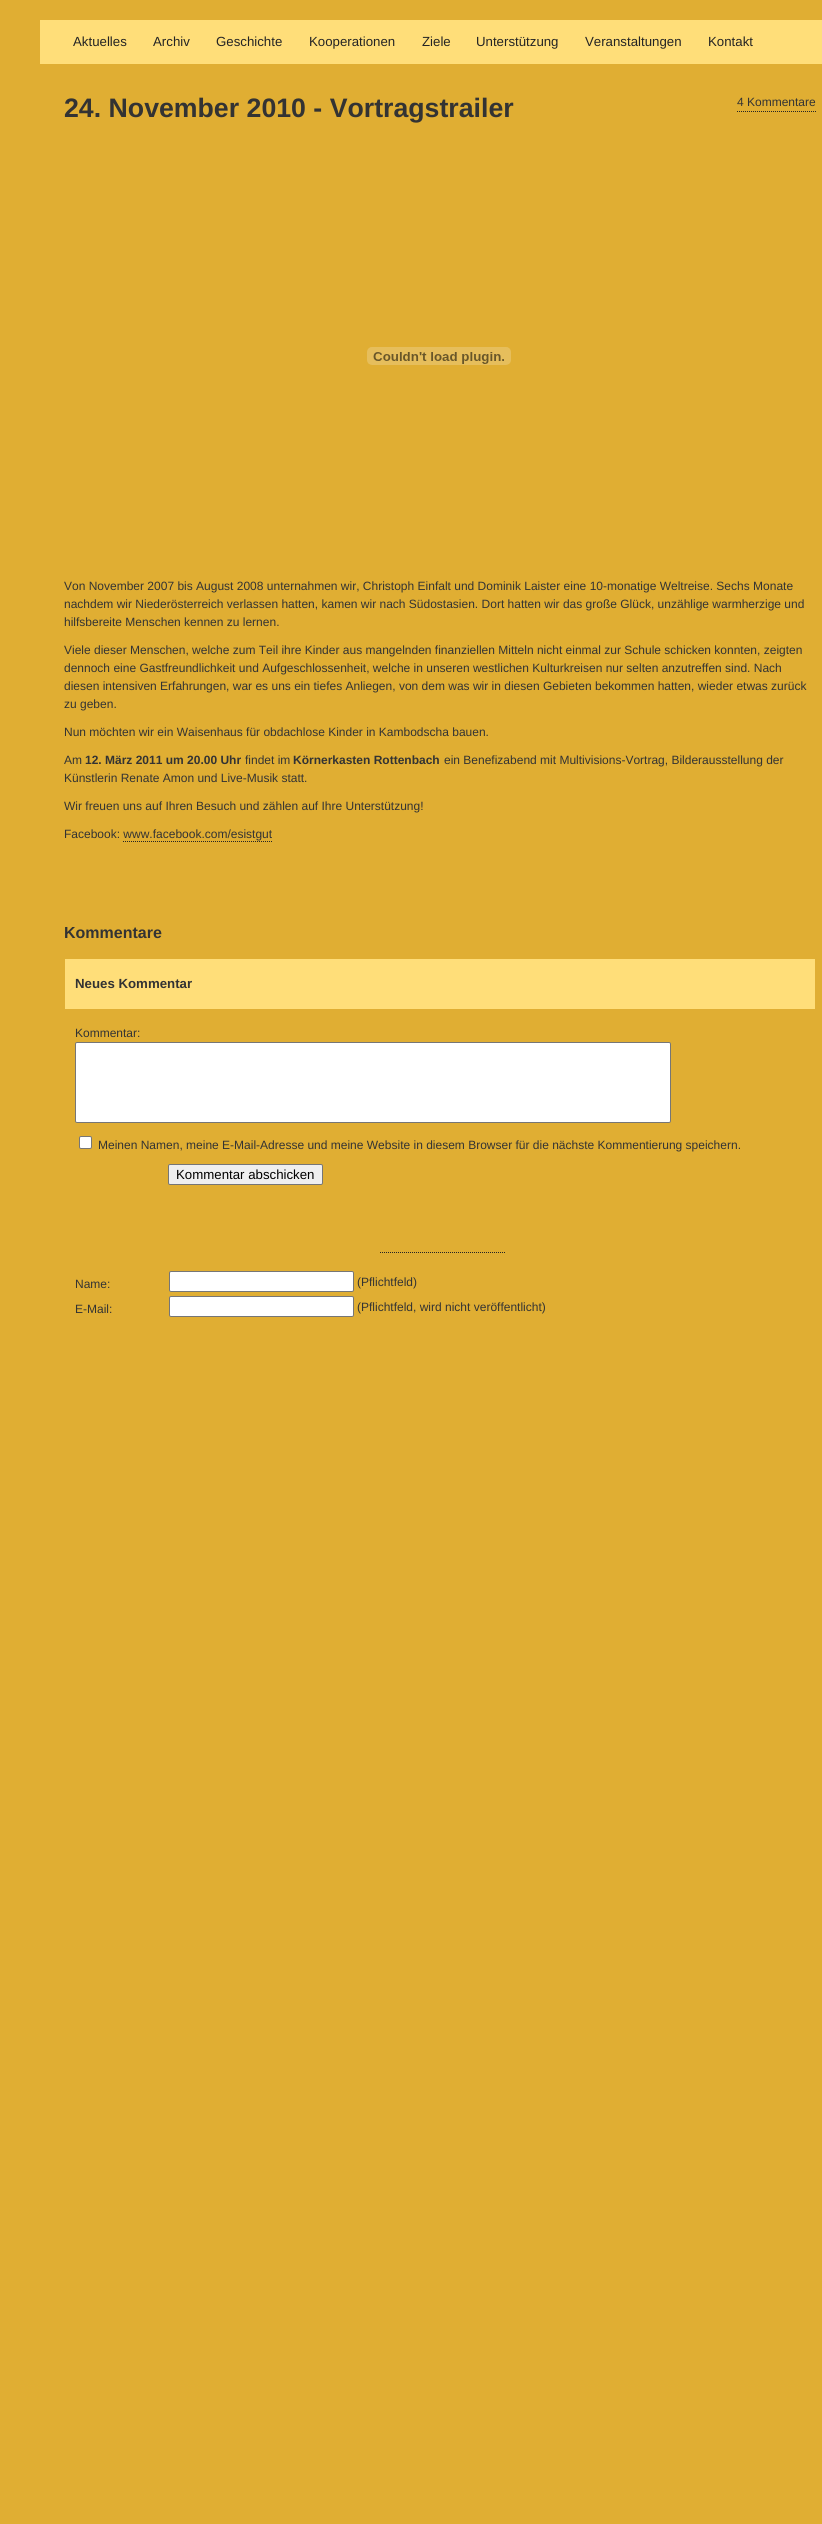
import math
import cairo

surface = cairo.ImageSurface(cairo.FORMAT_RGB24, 822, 2524)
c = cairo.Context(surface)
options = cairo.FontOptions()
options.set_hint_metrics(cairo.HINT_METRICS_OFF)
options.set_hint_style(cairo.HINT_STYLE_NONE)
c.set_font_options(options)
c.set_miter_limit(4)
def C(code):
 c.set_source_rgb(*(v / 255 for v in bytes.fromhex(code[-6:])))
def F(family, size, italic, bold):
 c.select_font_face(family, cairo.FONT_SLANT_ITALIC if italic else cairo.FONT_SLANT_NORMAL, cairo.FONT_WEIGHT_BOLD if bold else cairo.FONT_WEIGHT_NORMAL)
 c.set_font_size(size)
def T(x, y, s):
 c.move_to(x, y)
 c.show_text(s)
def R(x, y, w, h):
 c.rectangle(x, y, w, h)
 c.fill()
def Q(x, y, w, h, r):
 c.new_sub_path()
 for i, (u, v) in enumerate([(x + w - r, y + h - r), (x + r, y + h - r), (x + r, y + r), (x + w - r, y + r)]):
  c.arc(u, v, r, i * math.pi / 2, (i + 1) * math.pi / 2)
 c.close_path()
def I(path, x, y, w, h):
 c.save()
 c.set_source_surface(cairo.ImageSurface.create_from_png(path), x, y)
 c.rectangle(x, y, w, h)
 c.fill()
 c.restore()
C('e0ae33')
c.paint()
C('ffde79')
R(40,20,782,44)
F('Liberation Sans',13.25,0,0)
C('242424')
T(73,46,'Aktuelles')
T(153,46,'Archiv')
T(216,46,'Geschichte')
T(309,46,'Kooperationen')
T(422,46,'Ziele')
T(476,46,'Unterstützung')
T(585,46,'Veranstaltungen')
T(708,46,'Kontakt')
F('Liberation Sans',26.7,0,1)
C('333333')
T(64,117,'24. November 2010 - Vortragstrailer')
c.new_path()
c.move_to(737,111.5)
c.line_to(816,111.5)
C('242424')
c.set_line_width(1)
c.set_dash([1,1])
c.stroke()
F('Liberation Sans',12,0,0)
C('333333')
T(737,106,'4 Kommentare')
I('1.png',367,347,144,18)
T(64,590,'Von November 2007 bis August 2008 unternahmen wir, Christoph Einfalt und Dominik Laister eine 10-monatige Weltreise. Sechs Monate')
T(64,608,'nachdem wir Niederösterreich verlassen hatten, kamen wir nach Südostasien. Dort hatten wir das große Glück, unzählige warmherzige und')
T(64,626,'hilfsbereite Menschen kennen zu lernen.')
T(64,654,'Viele dieser Menschen, welche zum Teil ihre Kinder aus mangelnden finanziellen Mitteln nicht einmal zur Schule schicken konnten, zeigten')
T(64,672,'dennoch eine Gastfreundlichkeit und Aufgeschlossenheit, welche in unseren westlichen Kulturkreisen nur selten anzutreffen sind. Nach')
T(64,690,'diesen intensiven Erfahrungen, war es uns ein tiefes Anliegen, von dem was wir in diesen Gebieten bekommen hatten, wieder etwas zurück')
T(64,708,'zu geben.')
T(64,736,'Nun möchten wir ein Waisenhaus für obdachlose Kinder in Kambodscha bauen.')
T(64,764,'Am')
F('Liberation Sans',12,0,1)
T(85,764,'12. März 2011 um 20.00 Uhr')
F('Liberation Sans',12,0,0)
T(245,764,'findet im')
F('Liberation Sans',12,0,1)
T(293,764,'Körnerkasten Rottenbach')
F('Liberation Sans',12,0,0)
T(444,764,'ein Benefizabend mit Multivisions-Vortrag, Bilderausstellung der')
T(64,782,'Künstlerin Renate Amon und Live-Musik statt.')
T(64,810,'Wir freuen uns auf Ihren Besuch und zählen auf Ihre Unterstützung!')
T(64,838,'Facebook: www.facebook.com/esistgut')
c.new_path()
c.move_to(123,841.5)
c.line_to(272,841.5)
C('242424')
c.stroke()
F('Liberation Sans',16,0,1)
C('333333')
T(64,938,'Kommentare')
C('ffde79')
R(65,959,750,50)
F('Liberation Sans',13.25,0,1)
C('333333')
T(75,988,'Neues Kommentar')
F('Liberation Sans',12,0,0)
T(75,1037,'Kommentar:')
C('ffffff')
Q(75.5,1042.5,595,80,1.5)
c.fill_preserve()
C('767676')
c.set_dash([])
c.stroke()
C('ffffff')
Q(79.5,1136.5,12,12,1.5)
c.fill_preserve()
C('767676')
c.stroke()
C('333333')
T(98,1149,'Meinen Namen, meine E-Mail-Adresse und meine Website in diesem Browser für die nächste Kommentierung speichern.')
C('efefef')
Q(168.5,1164.5,154,20,1.5)
c.fill_preserve()
C('767676')
c.stroke()
F('Liberation Sans',13.25,0,0)
C('000000')
T(176,1179,'Kommentar abschicken')
c.new_path()
c.move_to(380,1252.5)
c.line_to(505,1252.5)
C('242424')
c.set_dash([1,1])
c.stroke()
F('Liberation Sans',12,0,0)
C('333333')
T(75,1288,'Name:')
C('ffffff')
Q(169.5,1271.5,184,20,1.5)
c.fill_preserve()
C('767676')
c.set_dash([])
c.stroke()
C('333333')
T(357,1286,'(Pflichtfeld)')
T(75,1313,'E-Mail:')
C('ffffff')
Q(169.5,1296.5,184,20,1.5)
c.fill_preserve()
C('767676')
c.stroke()
C('333333')
T(357,1311,'(Pflichtfeld, wird nicht veröffentlicht)')
surface.write_to_png('o.png')
